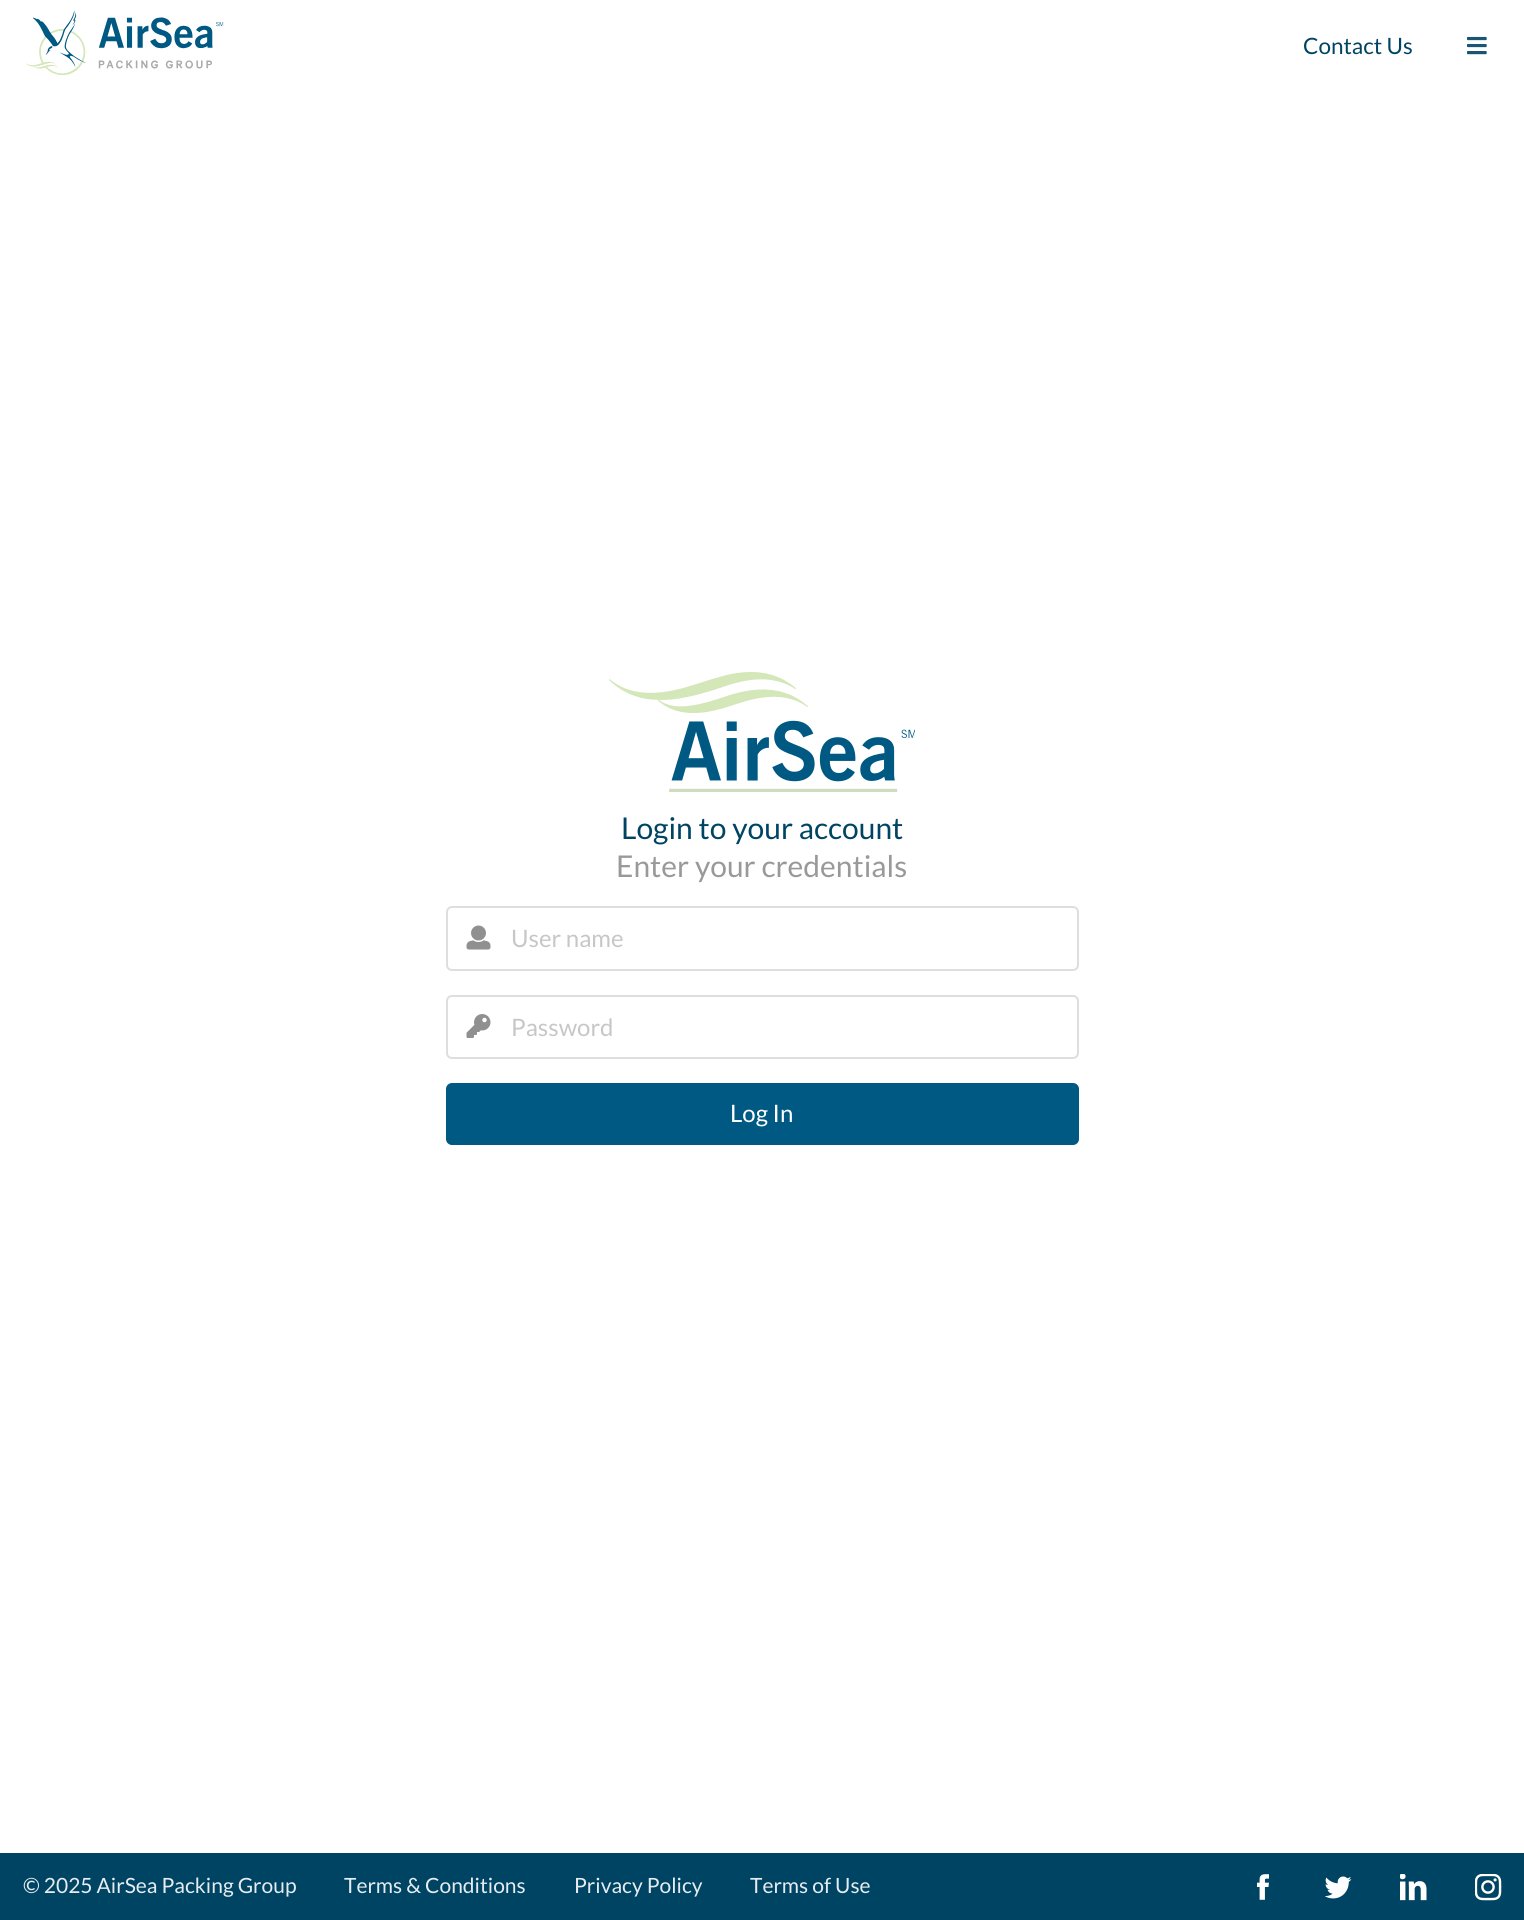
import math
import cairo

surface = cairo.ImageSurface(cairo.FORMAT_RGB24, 1524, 1920)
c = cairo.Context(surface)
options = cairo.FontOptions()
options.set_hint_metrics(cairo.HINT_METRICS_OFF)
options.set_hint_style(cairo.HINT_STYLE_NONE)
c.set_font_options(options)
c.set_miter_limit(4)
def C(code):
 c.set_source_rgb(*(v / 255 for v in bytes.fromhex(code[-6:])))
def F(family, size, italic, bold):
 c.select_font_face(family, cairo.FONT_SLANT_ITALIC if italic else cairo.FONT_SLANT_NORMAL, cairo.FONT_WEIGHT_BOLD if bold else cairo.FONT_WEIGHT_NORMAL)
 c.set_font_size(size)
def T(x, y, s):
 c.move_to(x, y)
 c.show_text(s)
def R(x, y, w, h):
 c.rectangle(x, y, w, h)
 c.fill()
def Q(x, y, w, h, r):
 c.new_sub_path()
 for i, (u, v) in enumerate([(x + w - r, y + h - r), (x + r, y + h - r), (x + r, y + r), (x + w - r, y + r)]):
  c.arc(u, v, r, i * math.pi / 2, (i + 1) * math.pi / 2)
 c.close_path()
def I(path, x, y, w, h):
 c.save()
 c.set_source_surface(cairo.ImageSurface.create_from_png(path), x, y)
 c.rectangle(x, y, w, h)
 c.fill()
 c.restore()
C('ffffff')
c.paint()
I('1.png',26,11,198,64)
F('Lato',22.5,0,0)
C('004464')
T(1303,54,'Contact Us')
I('2.png',1467,36,20,19)
I('3.png',609,672,306,120)
F('Lato',30,0,0)
T(621,839,'Login to your account')
C('999999')
T(616,877,'Enter your credentials')
Q(447,907,631,63,5)
C('dedede')
c.stroke()
I('4.png',466,925,25,25)
F('Lato',24,0,0)
C('c7c7c7')
T(511,947,'User name')
Q(447,996,631,62,5)
C('dedede')
c.stroke()
I('5.png',466,1014,25,24)
C('c7c7c7')
T(511,1036,'Password')
C('005983')
Q(446,1083,633,62,6)
c.fill()
C('ffffff')
T(730,1122,'Log In')
C('004464')
R(0,1853,1524,67)
F('Lato',21,0,0)
C('e6ecf0')
T(23,1893,'© 2025 AirSea Packing Group')
T(344,1893,'Terms & Conditions')
T(574,1893,'Privacy Policy')
T(750,1893,'Terms of Use')
I('6.png',1257,1874,12,26)
I('7.png',1325,1876,27,23)
I('8.png',1400,1874,27,27)
I('9.png',1475,1874,27,27)
surface.write_to_png('o.png')
